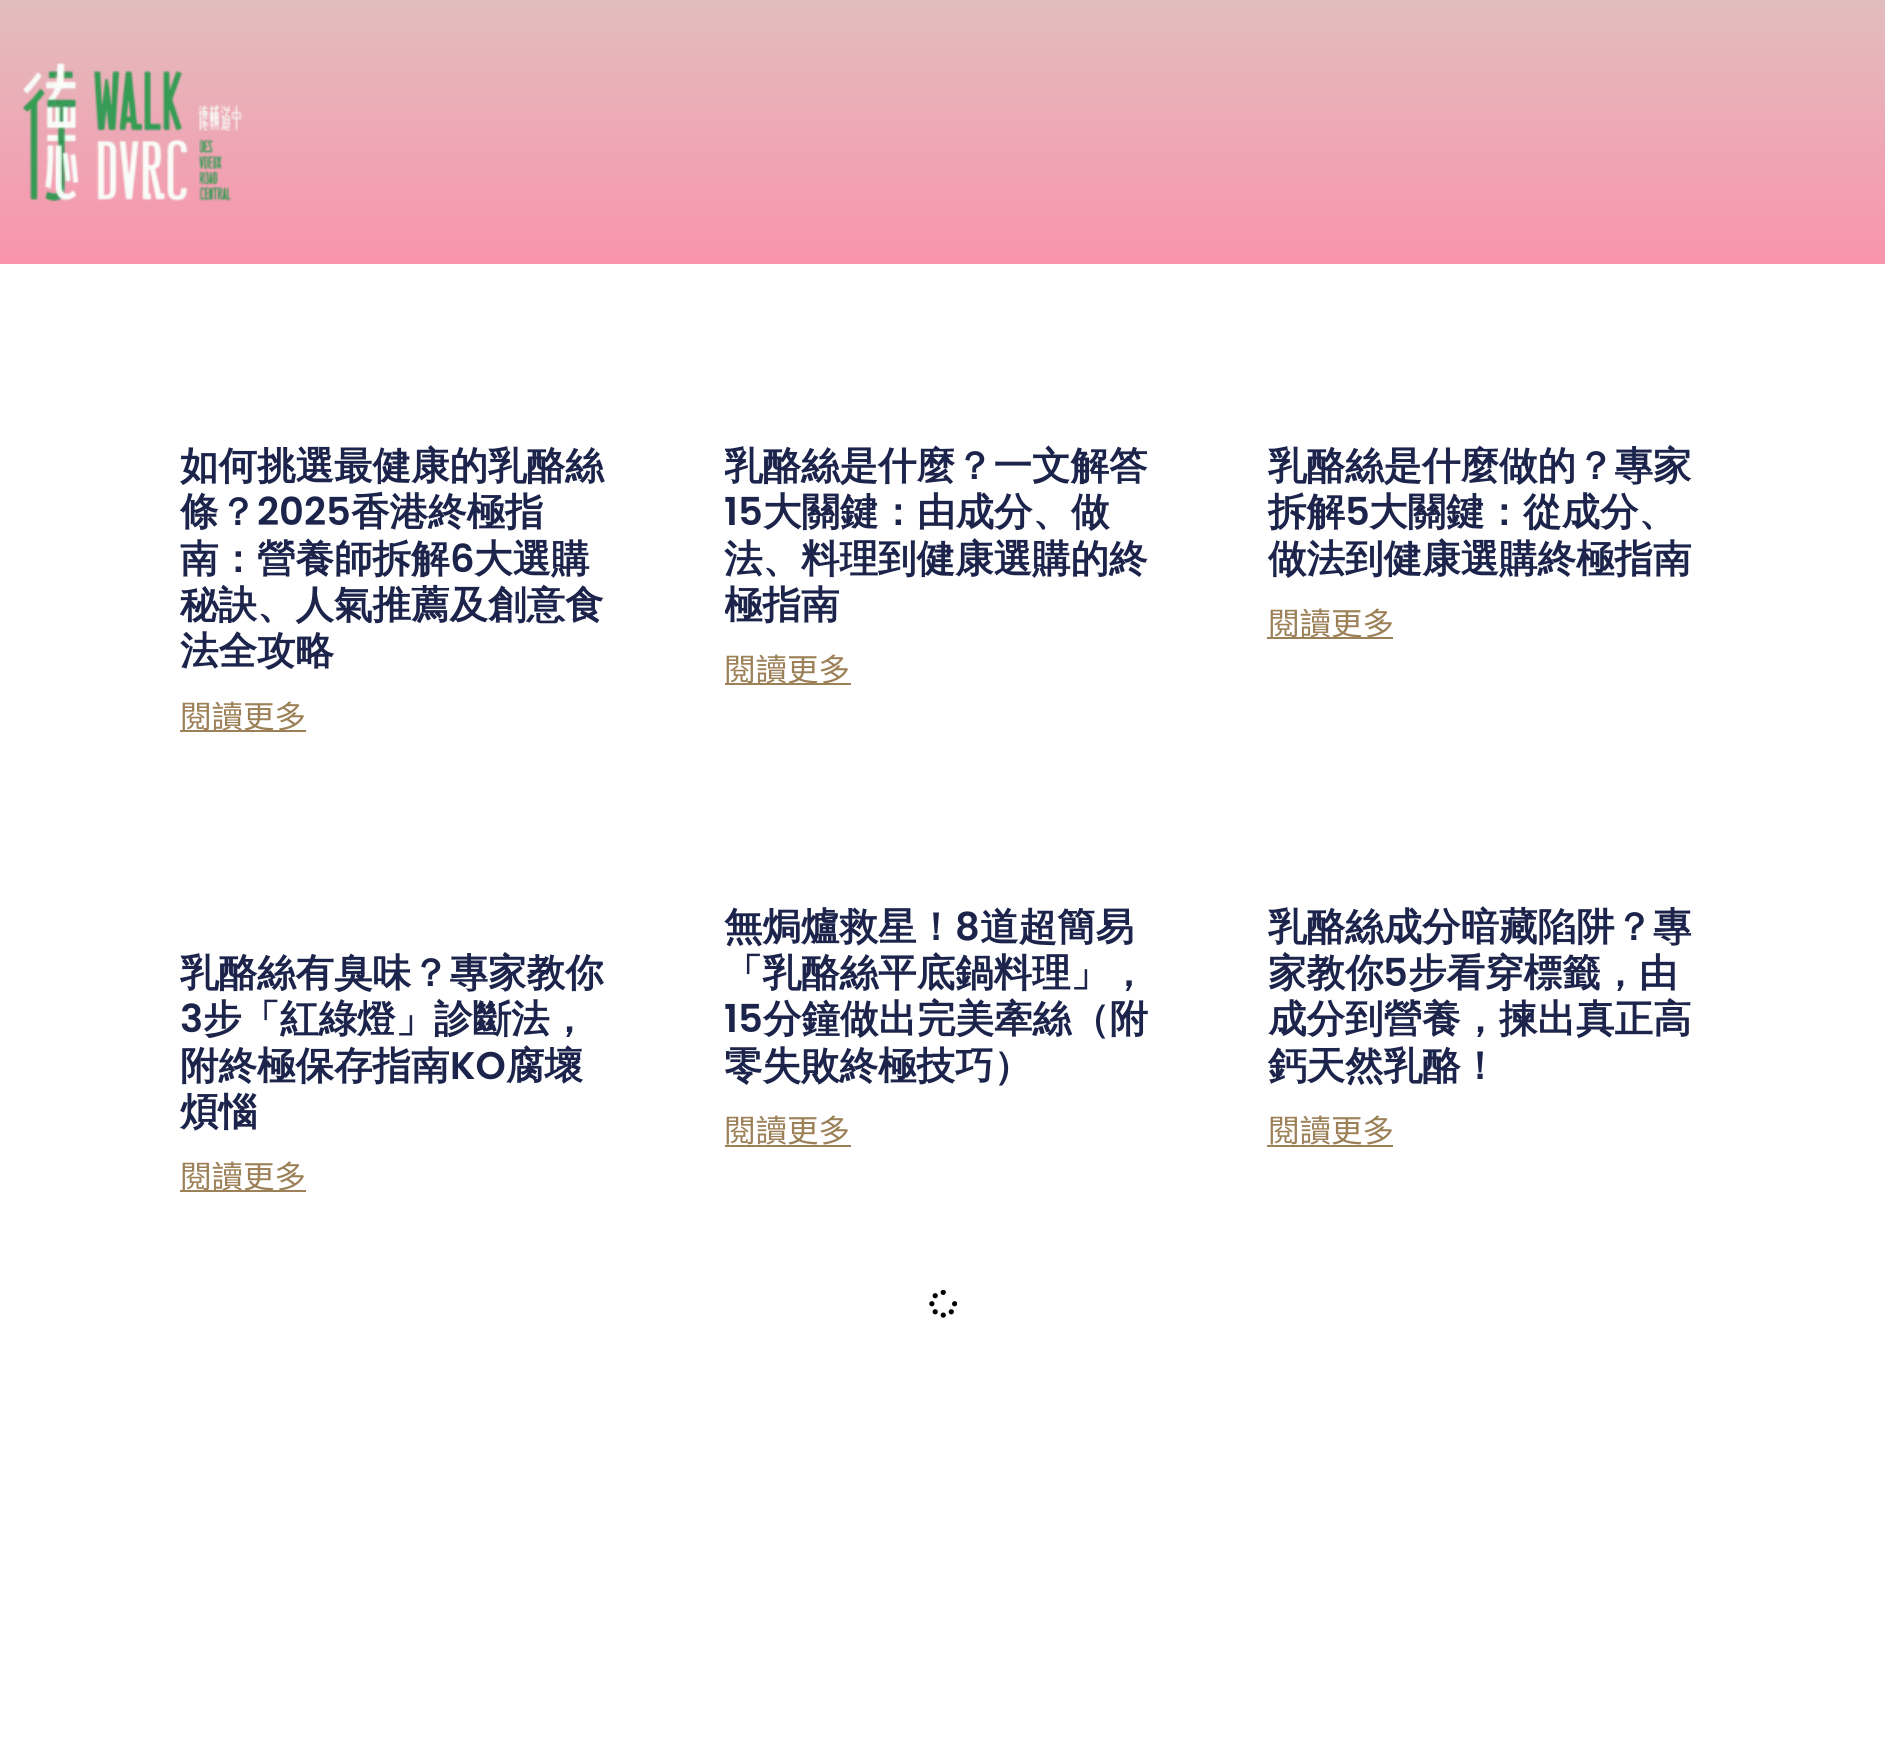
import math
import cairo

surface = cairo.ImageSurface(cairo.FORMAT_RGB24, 1885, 1745)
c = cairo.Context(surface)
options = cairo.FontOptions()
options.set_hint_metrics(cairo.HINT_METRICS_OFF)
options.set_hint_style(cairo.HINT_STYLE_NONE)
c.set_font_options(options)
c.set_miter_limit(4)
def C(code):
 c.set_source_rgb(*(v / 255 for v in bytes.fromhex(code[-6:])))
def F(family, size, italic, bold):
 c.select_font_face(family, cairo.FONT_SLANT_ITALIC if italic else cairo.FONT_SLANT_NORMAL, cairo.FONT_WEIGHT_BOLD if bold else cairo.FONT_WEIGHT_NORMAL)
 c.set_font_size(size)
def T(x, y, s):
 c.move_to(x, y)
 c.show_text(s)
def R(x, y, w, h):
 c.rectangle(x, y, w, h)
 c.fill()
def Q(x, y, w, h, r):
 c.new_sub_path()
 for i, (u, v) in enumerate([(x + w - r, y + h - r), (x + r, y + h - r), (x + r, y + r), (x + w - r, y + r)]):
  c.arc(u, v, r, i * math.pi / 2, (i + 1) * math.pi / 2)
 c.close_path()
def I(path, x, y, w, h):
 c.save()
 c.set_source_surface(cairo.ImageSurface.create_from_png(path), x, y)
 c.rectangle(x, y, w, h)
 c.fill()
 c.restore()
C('ffffff')
c.paint()
gradient = cairo.LinearGradient(943,0,943,264)
gradient.add_color_stop_rgba(0,0.886,0.741,0.741,1)
gradient.add_color_stop_rgba(1,0.976,0.58,0.678,1)
c.set_source(gradient)
R(0,0,1885,264)
I('1.png',22,63,221,139)
F('WenQuanYi Zen Hei',38.5,0,1)
C('1c244b')
T(180,479,'如何挑選最健康的乳酪絲')
T(180,525,'條？')
F('Poppins SemiBold',38.5,0,0)
T(257,525,'2025')
F('WenQuanYi Zen Hei',38.5,0,1)
T(351,525,'香港終極指')
T(180,572,'南：營養師拆解')
F('Poppins SemiBold',38.5,0,0)
T(450,572,'6')
F('WenQuanYi Zen Hei',38.5,0,1)
T(474,572,'大選購')
T(180,618,'秘訣、人氣推薦及創意食')
T(180,664,'法全攻略')
C('9c8057')
R(180,730,126,2)
F('Noto Sans TC',31.5,0,0)
T(180,728,'閱讀更多')
c.save()
Q(725,410,437,320,5)
c.clip()
F('WenQuanYi Zen Hei',38.5,0,1)
C('1c244b')
T(724,479,'乳酪絲是什麼？一文解答')
c.restore()
F('Poppins SemiBold',38.5,0,0)
C('1c244b')
T(724,525,'15')
F('WenQuanYi Zen Hei',38.5,0,1)
T(763,525,'大關鍵：由成分、做')
T(724,572,'法、料理到健康選購的終')
c.save()
Q(725,410,437,320,5)
c.clip()
T(724,618,'極指南')
c.restore()
C('9c8057')
R(725,683,126,2)
F('Noto Sans TC',31.5,0,0)
T(724,681,'閱讀更多')
F('WenQuanYi Zen Hei',38.5,0,1)
C('1c244b')
T(1268,479,'乳酪絲是什麼做的？專家')
T(1268,525,'拆解')
F('Poppins SemiBold',38.5,0,0)
T(1345,525,'5')
F('WenQuanYi Zen Hei',38.5,0,1)
T(1369,525,'大關鍵：從成分、')
T(1268,572,'做法到健康選購終極指南')
C('9c8057')
R(1267,637,126,2)
F('Noto Sans TC',31.5,0,0)
T(1268,635,'閱讀更多')
F('WenQuanYi Zen Hei',38.5,0,1)
C('1c244b')
T(180,986,'乳酪絲有臭味？專家教你')
F('Poppins SemiBold',38.5,0,0)
T(180,1032,'3')
F('WenQuanYi Zen Hei',38.5,0,1)
T(203,1032,'步「紅綠燈」診斷法，')
T(180,1079,'附終極保存指南')
F('Poppins SemiBold',38.5,0,0)
T(450,1079,'KO')
F('WenQuanYi Zen Hei',38.5,0,1)
T(506,1079,'腐壞')
T(180,1125,'煩惱')
C('9c8057')
R(180,1190,126,2)
F('Noto Sans TC',31.5,0,0)
T(180,1188,'閱讀更多')
F('WenQuanYi Zen Hei',38.5,0,1)
C('1c244b')
T(724,940,'無焗爐救星！')
F('Poppins SemiBold',38.5,0,0)
T(955,940,'8')
F('WenQuanYi Zen Hei',38.5,0,1)
T(980,940,'道超簡易')
T(724,986,'「乳酪絲平底鍋料理」，')
F('Poppins SemiBold',38.5,0,0)
T(724,1032,'15')
F('WenQuanYi Zen Hei',38.5,0,1)
T(763,1032,'分鐘做出完美牽絲（附')
T(724,1079,'零失敗終極技巧）')
F('Noto Sans TC',31.5,0,0)
C('9c8057')
T(724,1142,'閱讀更多')
R(725,1145,126,2)
F('WenQuanYi Zen Hei',38.5,0,1)
C('1c244b')
T(1268,940,'乳酪絲成分暗藏陷阱？專')
T(1268,986,'家教你')
F('Poppins SemiBold',38.5,0,0)
T(1383,986,'5')
F('WenQuanYi Zen Hei',38.5,0,1)
T(1408,986,'步看穿標籤，由')
T(1268,1032,'成分到營養，揀出真正高')
T(1268,1079,'鈣天然乳酪！')
F('Noto Sans TC',31.5,0,0)
C('9c8057')
T(1268,1142,'閱讀更多')
R(1267,1145,126,2)
I('2.png',929,1290,28,28)
surface.write_to_png('o.png')
